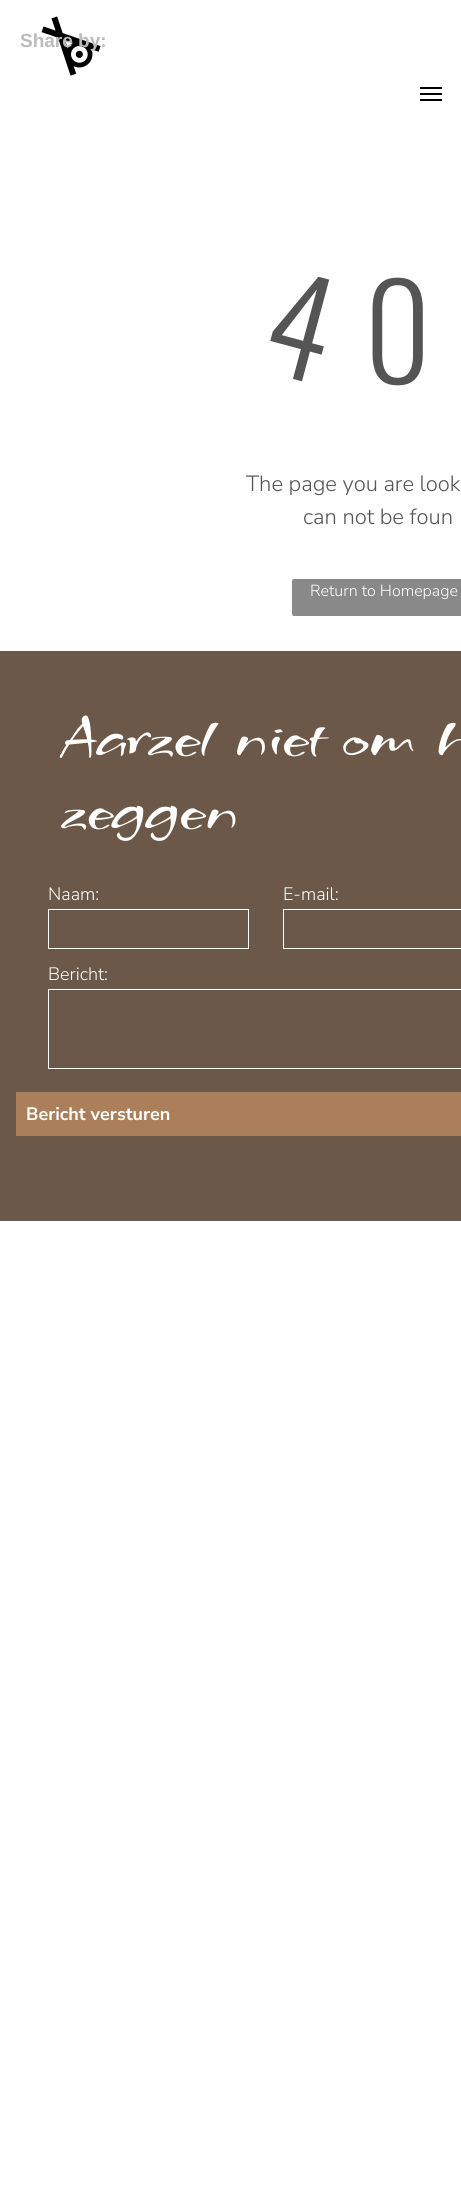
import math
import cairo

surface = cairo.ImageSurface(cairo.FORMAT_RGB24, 461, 2207)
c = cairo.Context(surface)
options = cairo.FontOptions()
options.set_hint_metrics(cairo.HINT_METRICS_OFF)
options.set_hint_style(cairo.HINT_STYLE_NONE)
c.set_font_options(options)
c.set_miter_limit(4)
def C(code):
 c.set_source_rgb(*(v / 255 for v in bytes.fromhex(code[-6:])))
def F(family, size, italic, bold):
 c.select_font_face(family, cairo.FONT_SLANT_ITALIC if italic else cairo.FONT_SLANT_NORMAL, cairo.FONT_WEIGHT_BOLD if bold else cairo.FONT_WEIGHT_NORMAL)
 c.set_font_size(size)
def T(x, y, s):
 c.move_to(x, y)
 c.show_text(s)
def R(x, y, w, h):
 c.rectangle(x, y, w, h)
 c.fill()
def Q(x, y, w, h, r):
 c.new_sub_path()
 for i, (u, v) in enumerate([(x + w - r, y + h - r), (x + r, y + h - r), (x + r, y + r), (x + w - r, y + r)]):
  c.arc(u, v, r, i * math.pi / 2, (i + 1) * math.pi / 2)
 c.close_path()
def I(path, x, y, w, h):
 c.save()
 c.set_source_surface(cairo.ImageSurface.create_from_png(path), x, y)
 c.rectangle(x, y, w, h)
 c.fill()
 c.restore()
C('ffffff')
c.paint()
I('1.png',41,16,60,60)
F('Liberation Sans',19,0,1)
C('bcbcbc')
T(20,47,'Share by:')
C('000000')
R(420,87,22,2)
R(420,93,22,2)
R(420,99,22,2)
F('Oswald Light',130,0,0)
C('555555')
c.save()
c.translate(256,369)
c.rotate(15 * math.pi / 180)
T(0,0,'4')
c.restore()
T(364,384,'0')
F('Nunito Sans Light',22,0,0)
T(246,491,'The page you are look')
T(303,524,'can not be foun')
C('898989')
Q(292,579,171,37,2)
c.fill()
F('Nunito Sans Light',16,0,0)
C('ffffff')
T(310,596,'Return to Homepage')
C('6b5848')
R(0,651,461,570)
F('Grechen Fuemen',60,0,0)
C('ffffff')
T(61,755,'Aarzel niet om h')
T(61,828,'zeggen')
F('Nunito Sans Light',18,0,0)
T(48,900,'Naam:')
c.rectangle(48.5,909.5,200,39)
c.set_line_width(1)
c.stroke()
T(283,900,'E-mail:')
c.rectangle(283.5,909.5,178,39)
c.stroke()
T(48,980,'Bericht:')
c.rectangle(48.5,989.5,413,79)
c.stroke()
C('aa7f5a')
R(16,1092,445,44)
F('Nunito Sans',18,0,1)
C('ffffff')
T(26,1120,'Bericht versturen')
surface.write_to_png('o.png')
